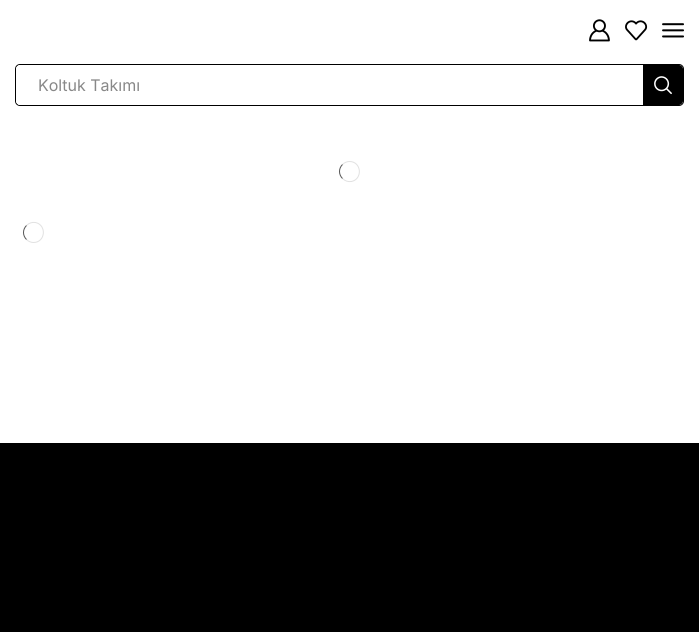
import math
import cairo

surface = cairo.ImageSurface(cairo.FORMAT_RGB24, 699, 632)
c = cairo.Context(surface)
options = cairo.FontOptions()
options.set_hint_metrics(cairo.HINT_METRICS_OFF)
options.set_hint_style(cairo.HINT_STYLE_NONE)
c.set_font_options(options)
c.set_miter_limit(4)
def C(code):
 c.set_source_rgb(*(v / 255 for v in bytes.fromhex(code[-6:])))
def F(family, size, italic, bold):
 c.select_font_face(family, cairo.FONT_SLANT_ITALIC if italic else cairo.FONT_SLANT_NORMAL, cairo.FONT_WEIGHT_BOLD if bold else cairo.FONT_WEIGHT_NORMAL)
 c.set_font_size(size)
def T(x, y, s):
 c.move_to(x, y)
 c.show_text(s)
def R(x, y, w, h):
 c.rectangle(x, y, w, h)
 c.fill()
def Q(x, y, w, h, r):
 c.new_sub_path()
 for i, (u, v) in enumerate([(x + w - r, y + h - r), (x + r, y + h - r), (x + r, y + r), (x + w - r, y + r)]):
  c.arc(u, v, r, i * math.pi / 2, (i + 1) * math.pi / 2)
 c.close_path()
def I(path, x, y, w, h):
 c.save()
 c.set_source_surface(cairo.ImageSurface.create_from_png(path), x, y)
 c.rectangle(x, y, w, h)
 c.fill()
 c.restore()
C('ffffff')
c.paint()
I('1.png',589,19,21,23)
I('2.png',625,20,23,21)
I('3.png',662,23,22,15)
Q(15.5,64.5,668,41,4.5)
C('000000')
c.set_line_width(1)
c.stroke()
C('ffffff')
c.new_path()
c.move_to(20,65)
c.line_to(643,65)
c.line_to(643,105)
c.line_to(20,105)
c.curve_to(18,105,16,103,16,101)
c.line_to(16,69)
c.curve_to(16,67,18,65,20,65)
c.close_path()
c.fill()
F('Inter',16,0,0)
C('888888')
T(38,91,'Koltuk Takımı')
C('000000')
c.new_path()
c.move_to(643,65)
c.line_to(679,65)
c.curve_to(681,65,683,67,683,69)
c.line_to(683,101)
c.curve_to(683,103,681,105,679,105)
c.line_to(643,105)
c.close_path()
c.fill()
I('4.png',654,76,18,19)
c.new_path()
c.move_to(342.5,164.5)
c.curve_to(344.5,162.5,347,161.5,349.5,161.5)
c.curve_to(361.5,161.5,363,179,351.5,181.5)
c.curve_to(348,182,345,181,342.5,178.5)
C('e1e1e1')
c.stroke()
c.new_path()
c.move_to(342.5,178.5)
c.curve_to(338.5,174.5,338.5,168.5,342.5,164.5)
C('555555')
c.stroke()
c.new_path()
c.move_to(26.5,225.5)
c.curve_to(29,223,32,222,35.5,222.5)
c.curve_to(47,225,45.5,242.5,33.5,242.5)
c.curve_to(31,242.5,28.5,241.5,26.5,239.5)
C('e1e1e1')
c.stroke()
c.new_path()
c.move_to(26.5,239.5)
c.curve_to(22.5,235.5,22.5,229.5,26.5,225.5)
C('555555')
c.stroke()
C('000000')
R(0,443,699,189)
surface.write_to_png('o.png')
